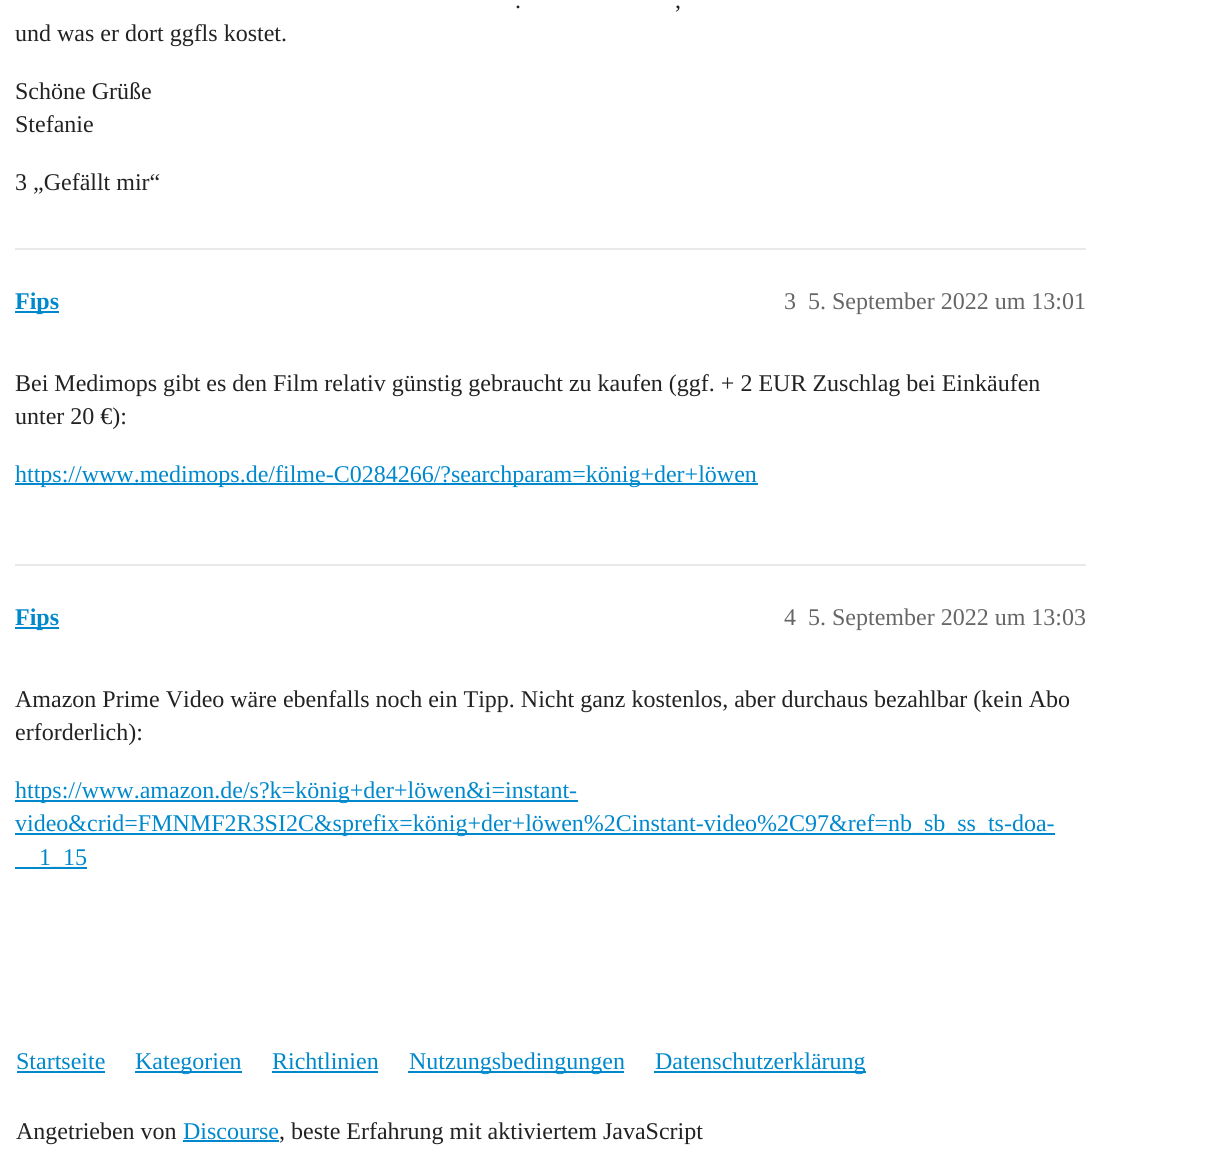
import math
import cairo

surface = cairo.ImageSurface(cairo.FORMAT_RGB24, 1214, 1172)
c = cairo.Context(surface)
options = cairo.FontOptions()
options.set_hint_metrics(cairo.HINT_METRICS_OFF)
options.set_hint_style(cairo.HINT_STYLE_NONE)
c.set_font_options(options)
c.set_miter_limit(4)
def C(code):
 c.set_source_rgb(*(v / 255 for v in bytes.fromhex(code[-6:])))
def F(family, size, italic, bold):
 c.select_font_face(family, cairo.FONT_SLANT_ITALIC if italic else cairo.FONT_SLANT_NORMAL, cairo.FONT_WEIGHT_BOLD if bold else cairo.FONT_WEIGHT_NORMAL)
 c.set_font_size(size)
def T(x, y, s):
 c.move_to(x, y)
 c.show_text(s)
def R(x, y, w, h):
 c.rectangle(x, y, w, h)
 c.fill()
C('ffffff')
c.paint()
F('Liberation Serif',24,0,0)
C('222222')
T(515,8,'.')
T(675,8,',')
T(15,41,'und was er dort ggfls kostet.')
T(15,99,'Schöne Grüße')
T(15,132,'Stefanie')
T(15,190,'3 „Gefällt mir“')
C('e9e9e9')
R(15,248,1071,2)
C('0088cc')
R(15,311,44,2)
F('Liberation Serif',24,0,1)
T(15,309,'Fips')
F('Liberation Serif',24,0,0)
C('666666')
T(784,309,'3')
T(808,309,'5. September 2022 um 13:01')
C('222222')
T(15,391,'Bei Medimops gibt es den Film relativ günstig gebraucht zu kaufen (ggf. + 2 EUR Zuschlag bei Einkäufen')
T(15,424,'unter 20 €):')
C('0088cc')
R(15,483,743,2)
T(15,482,'https://www.medimops.de/filme-C0284266/?searchparam=könig+der+löwen')
C('e9e9e9')
R(15,564,1071,2)
C('0088cc')
R(15,627,44,2)
F('Liberation Serif',24,0,1)
T(15,625,'Fips')
F('Liberation Serif',24,0,0)
C('666666')
T(784,625,'4')
T(808,625,'5. September 2022 um 13:03')
C('222222')
T(15,707,'Amazon Prime Video wäre ebenfalls noch ein Tipp. Nicht ganz kostenlos, aber durchaus bezahlbar (kein Abo')
T(15,740,'erforderlich):')
C('0088cc')
R(15,800,563,2)
T(15,798,'https://www.amazon.de/s?k=könig+der+löwen&i=instant-')
R(15,833,1040,2)
T(15,831,'video&crid=FMNMF2R3SI2C&sprefix=könig+der+löwen%2Cinstant-video%2C97&ref=nb_sb_ss_ts-doa-')
R(15,867,72,2)
T(39,865,'1_15')
T(16,1069,'Startseite')
R(17,1071,88,2)
R(135,1071,107,2)
T(135,1069,'Kategorien')
T(272,1069,'Richtlinien')
R(272,1071,106,2)
R(408,1071,216,2)
T(409,1069,'Nutzungsbedingungen')
R(654,1071,212,2)
T(655,1069,'Datenschutzerklärung')
C('222222')
T(16,1139,'Angetrieben von')
C('0088cc')
T(183,1139,'Discourse')
R(183,1140,96,2)
C('222222')
T(279,1139,', beste Erfahrung mit aktiviertem JavaScript')
surface.write_to_png('o.png')
